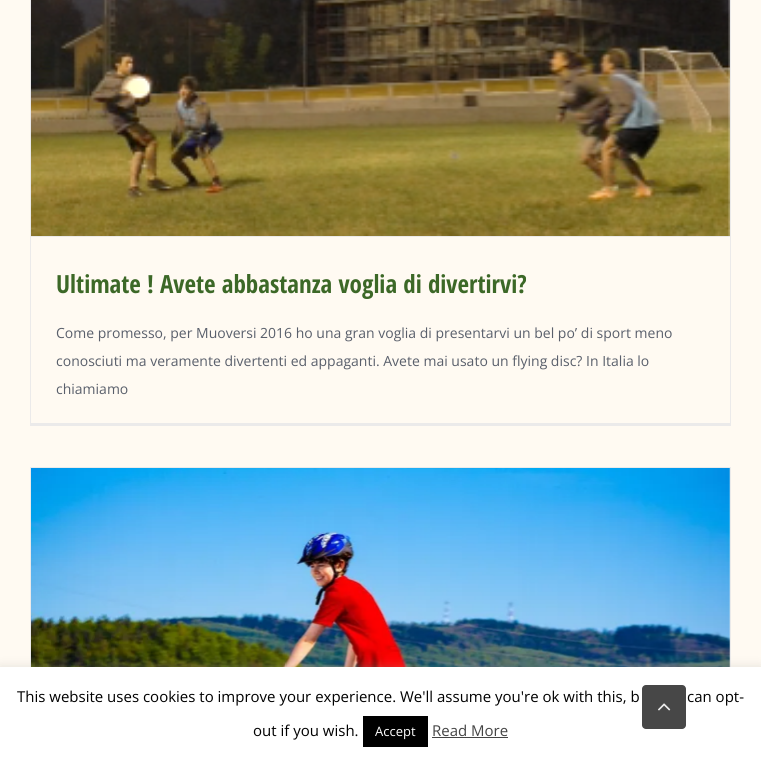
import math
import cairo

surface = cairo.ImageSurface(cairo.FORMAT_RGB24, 761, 759)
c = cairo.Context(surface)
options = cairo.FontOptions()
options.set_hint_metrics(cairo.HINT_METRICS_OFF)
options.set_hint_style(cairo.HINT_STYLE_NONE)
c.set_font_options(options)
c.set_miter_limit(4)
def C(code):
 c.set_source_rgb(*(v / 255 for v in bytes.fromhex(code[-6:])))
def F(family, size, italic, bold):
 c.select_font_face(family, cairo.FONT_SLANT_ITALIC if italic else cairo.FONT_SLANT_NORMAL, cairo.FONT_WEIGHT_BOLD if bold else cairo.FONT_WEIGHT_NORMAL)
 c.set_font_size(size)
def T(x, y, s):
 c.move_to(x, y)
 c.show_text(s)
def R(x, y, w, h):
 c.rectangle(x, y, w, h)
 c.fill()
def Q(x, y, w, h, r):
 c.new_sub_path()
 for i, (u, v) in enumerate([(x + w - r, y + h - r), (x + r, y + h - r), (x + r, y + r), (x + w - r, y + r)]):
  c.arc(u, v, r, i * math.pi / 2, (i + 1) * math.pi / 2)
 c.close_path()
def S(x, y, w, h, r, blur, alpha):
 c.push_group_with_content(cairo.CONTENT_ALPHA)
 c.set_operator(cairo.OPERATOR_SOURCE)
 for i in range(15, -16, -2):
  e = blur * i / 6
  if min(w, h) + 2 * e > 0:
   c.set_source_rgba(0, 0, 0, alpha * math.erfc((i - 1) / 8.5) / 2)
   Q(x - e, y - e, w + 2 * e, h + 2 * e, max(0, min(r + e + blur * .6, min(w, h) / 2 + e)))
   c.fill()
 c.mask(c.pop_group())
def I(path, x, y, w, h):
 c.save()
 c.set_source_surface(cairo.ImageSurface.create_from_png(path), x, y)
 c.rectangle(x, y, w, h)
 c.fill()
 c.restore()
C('fffaf2')
c.paint()
C('ebeaea')
R(730,0,1,426)
R(30,423,701,3)
R(30,0,1,426)
R(31,236,699,1)
I('1.png',31,0,699,236)
F('Open Sans Condensed',25,0,1)
C('3c6827')
T(56,293,'Ultimate ! Avete abbastanza voglia di divertirvi?')
F('Open Sans',14,0,0)
C('595f6b')
T(56,338,'Come promesso, per Muoversi 2016 ho una gran voglia di presentarvi un bel po’ di sport meno')
T(56,366,'conosciuti ma veramente divertenti ed appaganti. Avete mai usato un flying disc? In Italia lo')
T(56,394,'chiamiamo')
C('ebeaea')
R(30,467,701,1)
R(730,467,1,200)
R(30,467,1,200)
I('2.png',31,468,699,199)
C('acabab')
S(0,666,761,92,0,5,.3)
C('ffffff')
R(0,667,761,92)
c.set_source_rgba(0.2,0.2,0.2,0.9)
Q(642,685,44,44,4)
c.fill()
I('3.png',658,703,13,8)
F('Open Sans',15,0,0)
C('000000')
T(17,702,'This website uses cookies to improve your experience. We\'ll assume you\'re ok with this, b')
T(687,702,'can opt-')
T(253,736,'out if you wish.')
R(363,716,65,31)
F('Open Sans',13,0,0)
C('ffffff')
T(375,736,'Accept')
F('Open Sans',15,0,0)
C('444444')
T(432,736,'Read More')
R(432,737,76,1)
surface.write_to_png('o.png')
